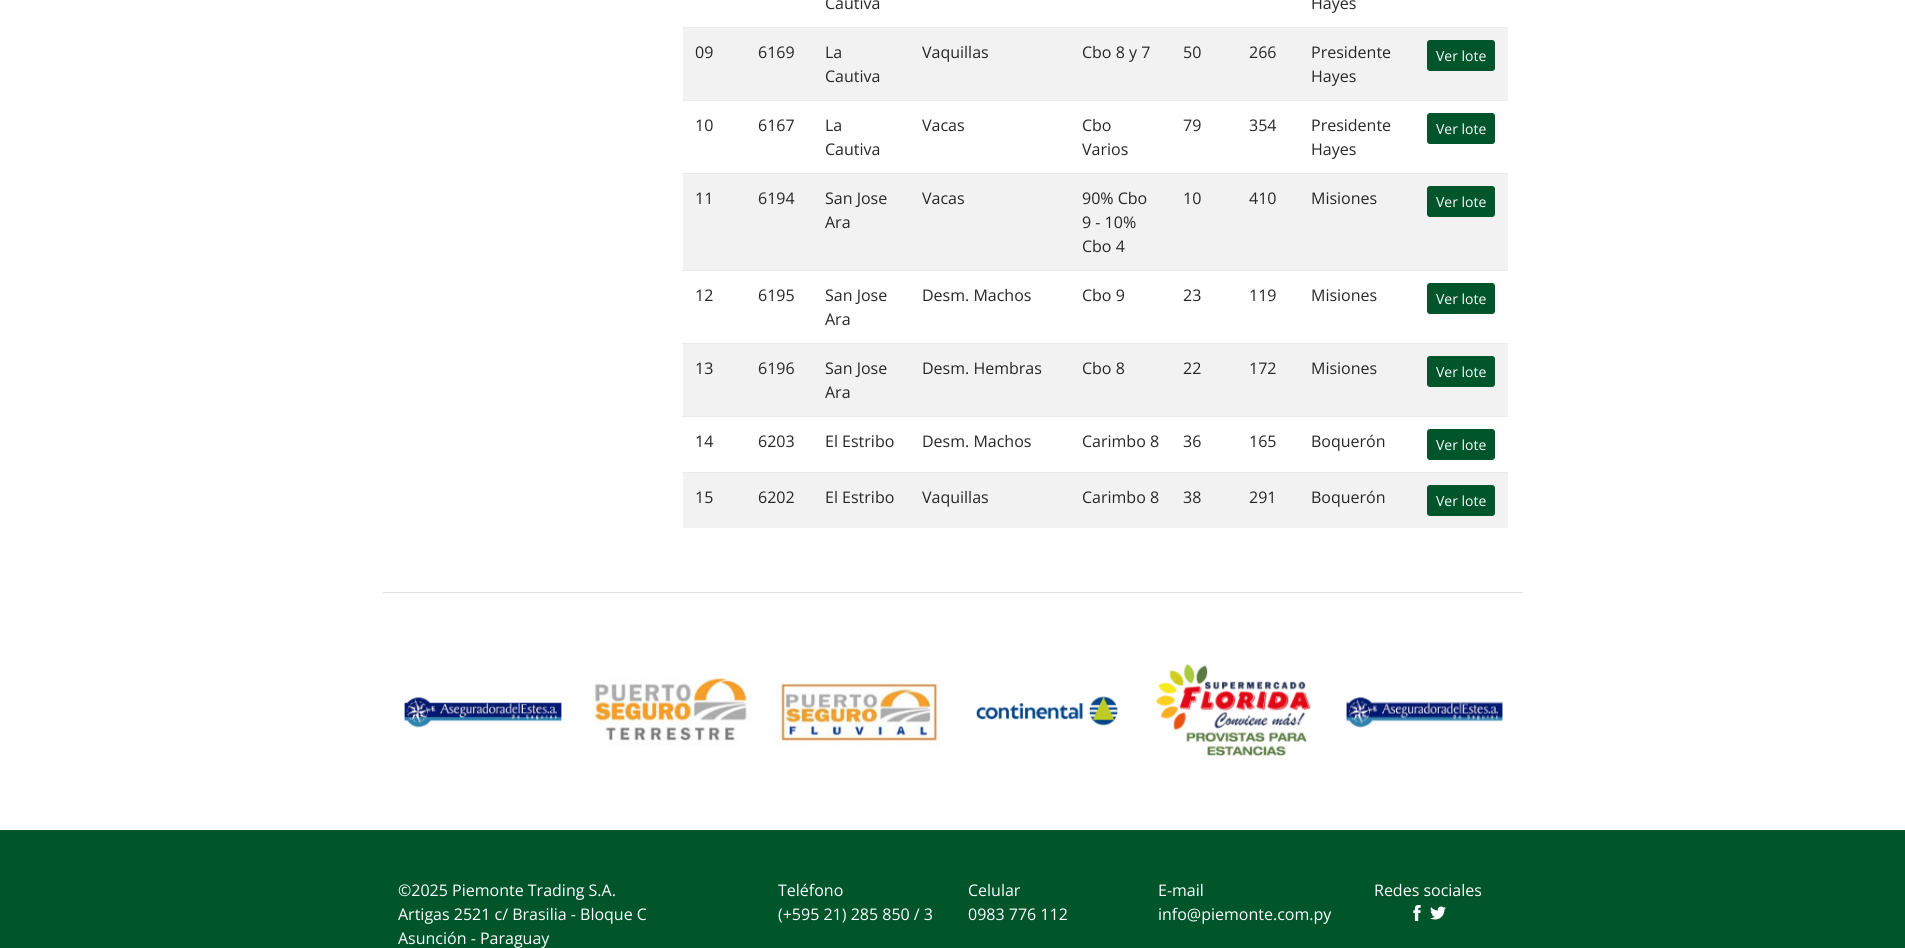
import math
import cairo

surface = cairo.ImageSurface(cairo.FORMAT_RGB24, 1905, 948)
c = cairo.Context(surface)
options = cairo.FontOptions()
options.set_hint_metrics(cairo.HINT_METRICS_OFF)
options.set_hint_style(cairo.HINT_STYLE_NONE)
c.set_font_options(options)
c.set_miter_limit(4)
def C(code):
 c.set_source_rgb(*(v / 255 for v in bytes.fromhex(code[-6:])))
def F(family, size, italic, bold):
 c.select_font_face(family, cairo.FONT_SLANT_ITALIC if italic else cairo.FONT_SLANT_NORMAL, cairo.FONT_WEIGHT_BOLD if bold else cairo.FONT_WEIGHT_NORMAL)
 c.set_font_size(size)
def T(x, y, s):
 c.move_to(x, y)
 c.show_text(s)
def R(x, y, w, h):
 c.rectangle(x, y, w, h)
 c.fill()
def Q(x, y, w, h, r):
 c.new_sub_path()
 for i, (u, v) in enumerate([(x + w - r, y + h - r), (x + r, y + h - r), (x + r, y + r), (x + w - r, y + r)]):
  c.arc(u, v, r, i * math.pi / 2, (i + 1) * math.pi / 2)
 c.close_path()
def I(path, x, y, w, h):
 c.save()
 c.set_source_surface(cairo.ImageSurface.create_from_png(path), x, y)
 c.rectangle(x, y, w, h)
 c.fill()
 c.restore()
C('ffffff')
c.paint()
F('Open Sans',16,0,0)
C('272727')
T(825,9,'Cautiva')
T(1311,9,'Hayes')
C('f2f2f2')
R(683,28,825,72)
C('272727')
T(695,58,'09')
T(758,58,'6169')
T(825,58,'La')
T(825,82,'Cautiva')
T(922,58,'Vaquillas')
T(1082,58,'Cbo 8 y 7')
T(1183,58,'50')
T(1249,58,'266')
T(1311,58,'Presidente')
T(1311,82,'Hayes')
C('e9ecef')
R(682,27,826,1)
C('00552b')
Q(1427.5,40.5,67,30,2.5)
c.fill_preserve()
c.set_line_width(1)
c.stroke()
F('Open Sans',14,0,0)
C('ffffff')
T(1436,61,'Ver lote')
F('Open Sans',16,0,0)
C('272727')
T(695,131,'10')
T(758,131,'6167')
T(825,131,'La')
T(825,155,'Cautiva')
T(922,131,'Vacas')
T(1082,131,'Cbo')
T(1082,155,'Varios')
T(1183,131,'79')
T(1249,131,'354')
T(1311,131,'Presidente')
T(1311,155,'Hayes')
C('e9ecef')
R(682,100,826,1)
C('00552b')
Q(1427.5,113.5,67,30,2.5)
c.fill_preserve()
c.stroke()
F('Open Sans',14,0,0)
C('ffffff')
T(1436,134,'Ver lote')
C('f2f2f2')
R(683,174,825,96)
F('Open Sans',16,0,0)
C('272727')
T(695,204,'11')
T(758,204,'6194')
T(825,204,'San Jose')
T(825,228,'Ara')
T(922,204,'Vacas')
T(1082,204,'90% Cbo')
T(1082,228,'9 - 10%')
T(1082,252,'Cbo 4')
T(1183,204,'10')
T(1249,204,'410')
T(1311,204,'Misiones')
C('e9ecef')
R(682,173,826,1)
C('00552b')
Q(1427.5,186.5,67,30,2.5)
c.fill_preserve()
c.stroke()
F('Open Sans',14,0,0)
C('ffffff')
T(1436,207,'Ver lote')
F('Open Sans',16,0,0)
C('272727')
T(695,301,'12')
T(758,301,'6195')
T(825,301,'San Jose')
T(825,325,'Ara')
T(922,301,'Desm. Machos')
T(1082,301,'Cbo 9')
T(1183,301,'23')
T(1249,301,'119')
T(1311,301,'Misiones')
C('e9ecef')
R(682,270,826,1)
C('00552b')
Q(1427.5,283.5,67,30,2.5)
c.fill_preserve()
c.stroke()
F('Open Sans',14,0,0)
C('ffffff')
T(1436,304,'Ver lote')
C('f2f2f2')
R(683,344,825,72)
F('Open Sans',16,0,0)
C('272727')
T(695,374,'13')
T(758,374,'6196')
T(825,374,'San Jose')
T(825,398,'Ara')
T(922,374,'Desm. Hembras')
T(1082,374,'Cbo 8')
T(1183,374,'22')
T(1249,374,'172')
T(1311,374,'Misiones')
C('e9ecef')
R(682,343,826,1)
C('00552b')
Q(1427.5,356.5,67,30,2.5)
c.fill_preserve()
c.stroke()
F('Open Sans',14,0,0)
C('ffffff')
T(1436,377,'Ver lote')
F('Open Sans',16,0,0)
C('272727')
T(695,447,'14')
T(758,447,'6203')
T(825,447,'El Estribo')
T(922,447,'Desm. Machos')
T(1082,447,'Carimbo 8')
T(1183,447,'36')
T(1249,447,'165')
T(1311,447,'Boquerón')
C('e9ecef')
R(682,416,826,1)
C('00552b')
Q(1427.5,429.5,67,30,2.5)
c.fill_preserve()
c.stroke()
F('Open Sans',14,0,0)
C('ffffff')
T(1436,450,'Ver lote')
C('f2f2f2')
R(683,473,825,55)
F('Open Sans',16,0,0)
C('272727')
T(695,503,'15')
T(758,503,'6202')
T(825,503,'El Estribo')
T(922,503,'Vaquillas')
T(1082,503,'Carimbo 8')
T(1183,503,'38')
T(1249,503,'291')
T(1311,503,'Boquerón')
C('e9ecef')
R(682,472,826,1)
C('00552b')
Q(1427.5,485.5,67,30,2.5)
c.fill_preserve()
c.stroke()
F('Open Sans',14,0,0)
C('ffffff')
T(1436,506,'Ver lote')
C('dee2e6')
R(383,592,1140,1)
I('1.png',404,697,158,31)
I('2.png',594,678,157,68)
I('3.png',775,679,165,67)
I('4.png',976,696,142,30)
I('5.png',1155,664,156,92)
I('6.png',1346,697,157,31)
C('00552b')
R(0,830,1905,118)
F('Open Sans',16,0,0)
C('ffffff')
T(398,896,'©2025 Piemonte Trading S.A.')
T(398,920,'Artigas 2521 c/ Brasilia - Bloque C')
T(398,944,'Asunción - Paraguay')
T(778,896,'Teléfono')
T(778,920,'(+595 21) 285 850 / 3')
T(968,896,'Celular')
T(968,920,'0983 776 112')
T(1158,896,'E-mail')
T(1158,920,'info@piemonte.com.py')
T(1374,896,'Redes sociales')
I('7.png',1413,905,8,16)
I('8.png',1430,906,16,14)
surface.write_to_png('o.png')
